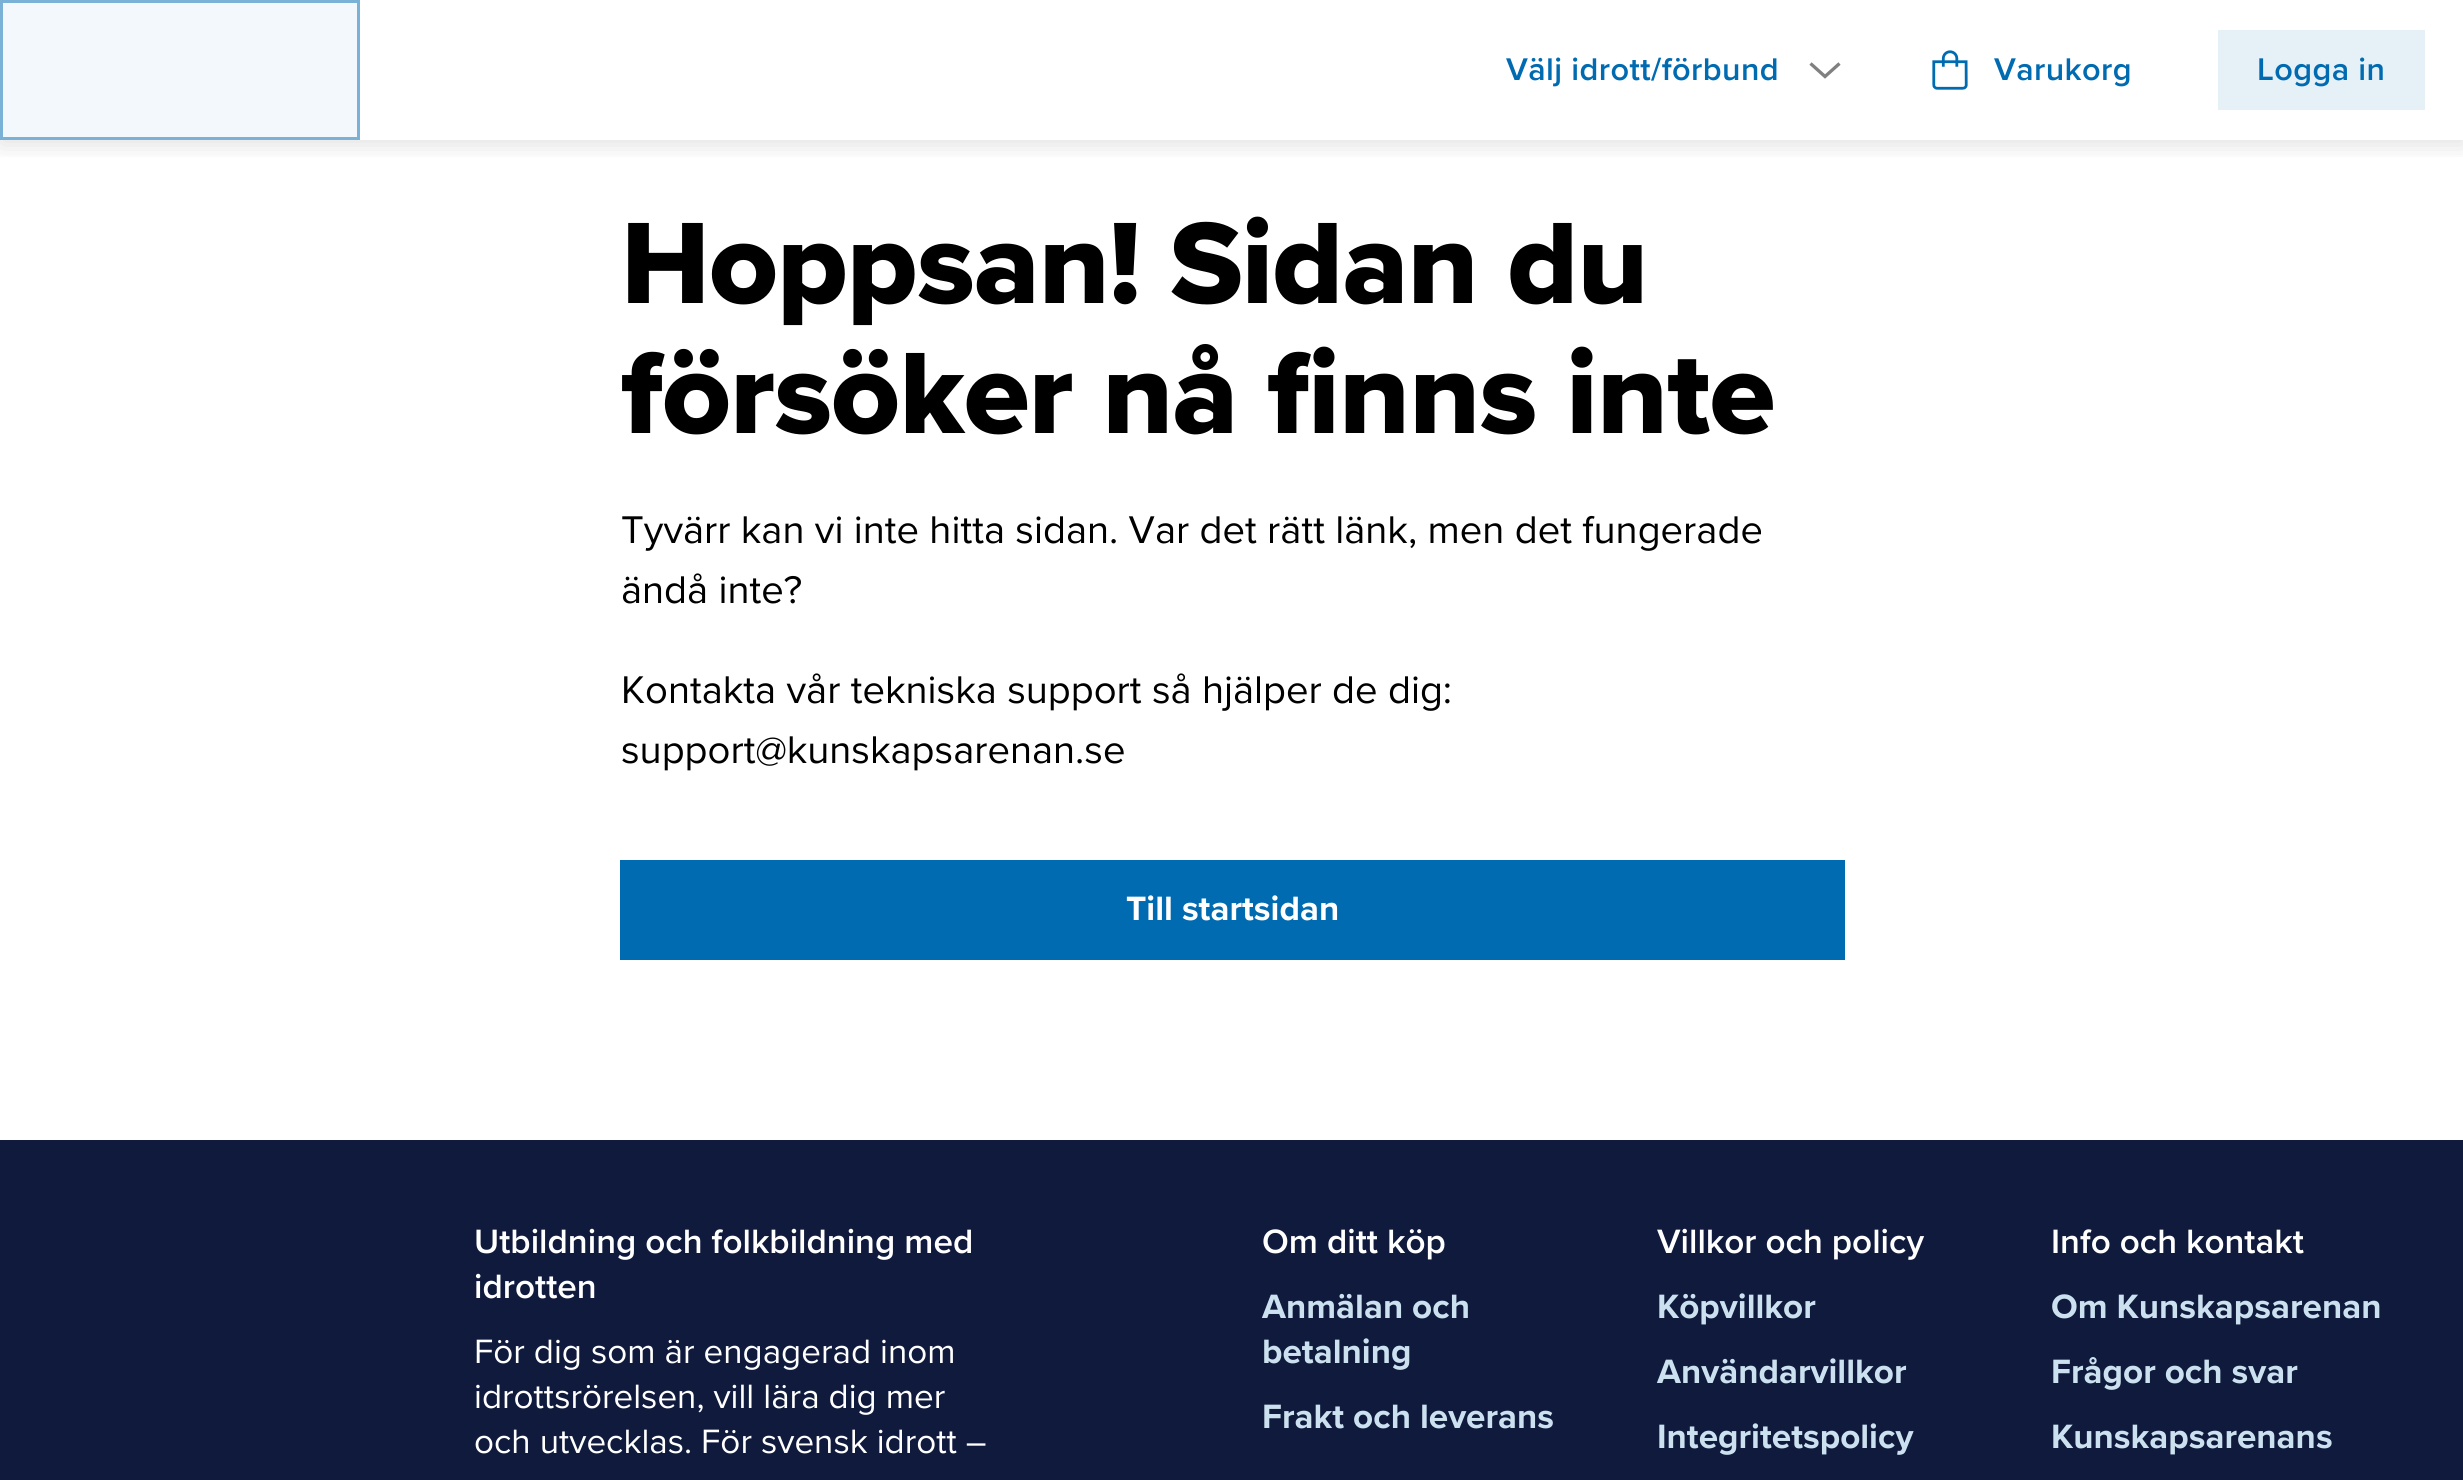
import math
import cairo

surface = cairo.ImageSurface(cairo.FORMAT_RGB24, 2463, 1480)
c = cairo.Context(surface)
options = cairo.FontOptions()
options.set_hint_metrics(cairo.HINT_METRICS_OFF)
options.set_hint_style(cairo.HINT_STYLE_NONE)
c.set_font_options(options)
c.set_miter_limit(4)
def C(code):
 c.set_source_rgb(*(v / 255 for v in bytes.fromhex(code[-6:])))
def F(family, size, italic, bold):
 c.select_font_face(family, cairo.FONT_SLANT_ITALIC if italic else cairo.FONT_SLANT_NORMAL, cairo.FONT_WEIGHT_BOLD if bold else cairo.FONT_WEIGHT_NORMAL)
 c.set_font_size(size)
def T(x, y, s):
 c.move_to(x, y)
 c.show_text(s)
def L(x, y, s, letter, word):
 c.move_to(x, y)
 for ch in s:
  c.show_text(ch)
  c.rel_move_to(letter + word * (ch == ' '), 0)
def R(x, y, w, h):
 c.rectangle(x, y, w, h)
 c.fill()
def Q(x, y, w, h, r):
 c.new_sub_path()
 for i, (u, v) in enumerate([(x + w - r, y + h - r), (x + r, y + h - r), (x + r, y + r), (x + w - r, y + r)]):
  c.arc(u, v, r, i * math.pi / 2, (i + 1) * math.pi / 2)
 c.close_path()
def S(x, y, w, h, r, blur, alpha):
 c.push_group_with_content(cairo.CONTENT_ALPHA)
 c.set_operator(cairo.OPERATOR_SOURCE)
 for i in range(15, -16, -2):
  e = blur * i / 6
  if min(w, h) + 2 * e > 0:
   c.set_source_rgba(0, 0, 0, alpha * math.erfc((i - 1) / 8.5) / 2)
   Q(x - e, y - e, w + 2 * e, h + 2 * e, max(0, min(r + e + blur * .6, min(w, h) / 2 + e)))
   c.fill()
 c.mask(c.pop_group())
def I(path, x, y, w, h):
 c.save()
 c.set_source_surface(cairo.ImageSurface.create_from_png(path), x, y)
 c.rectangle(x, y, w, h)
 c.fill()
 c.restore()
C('ffffff')
c.paint()
c.save()
c.rectangle(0,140,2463,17)
c.clip()
C('000000')
S(0,5,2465,140,0,12.5,.12)
c.restore()
C('f2f8fb')
c.rectangle(1.5,1.5,357,137)
c.fill_preserve()
C('79b2d6')
c.set_line_width(3)
c.stroke()
F('Proxima Nova SemiBold',32.5,0,0)
C('006bb1')
L(1506,80,'Välj idrott/förbund',.4,0)
c.new_path()
c.move_to(1810.5,63.5)
c.line_to(1825,76.5)
c.line_to(1839.5,63.5)
C('808080')
c.set_line_width(3.3)
c.stroke()
I('1.png',1932,50,36,40)
C('006bb1')
L(1994,80,'Varukorg',.4,0)
C('e6f0f7')
R(2218,30,207,80)
C('006bb1')
L(2257,80,'Logga in',.4,0)
F('Proxima Nova ExtraBold',120,0,0)
C('000000')
L(621,303,'Hoppsan! Sidan du',-1,0)
L(621,433,'försöker nå finns inte',-1,0)
F('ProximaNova',40,0,0)
T(621,543,'Tyvärr kan vi inte hitta sidan. Var det rätt länk, men det fungerade')
T(621,603,'ändå inte?')
T(621,703,'Kontakta vår tekniska support så hjälper de dig:')
T(621,763,'support@kunskapsarenan.se')
C('006bb1')
R(620,860,1225,100)
F('ProximaNova',35,0,1)
C('ffffff')
T(1126,920,'Till startsidan')
C('0f1a3d')
R(0,1140,2463,340)
F('Proxima Nova SemiBold',35,0,0)
C('ffffff')
T(474,1253,'Utbildning och folkbildning med')
T(474,1298,'idrotten')
F('ProximaNova',35,0,0)
T(474,1363,'För dig som är engagerad inom')
T(474,1408,'idrottsrörelsen, vill lära dig mer')
T(474,1453,'och utvecklas. För svensk idrott –')
F('Proxima Nova SemiBold',35,0,0)
T(1262,1253,'Om ditt köp')
F('ProximaNova',35,0,1)
C('cce1ef')
T(1262,1318,'Anmälan och')
T(1262,1363,'betalning')
T(1262,1428,'Frakt och leverans')
F('Proxima Nova SemiBold',35,0,0)
C('ffffff')
T(1657,1253,'Villkor och policy')
F('ProximaNova',35,0,1)
C('cce1ef')
T(1657,1318,'Köpvillkor')
T(1657,1383,'Användarvillkor')
T(1657,1448,'Integritetspolicy')
F('Proxima Nova SemiBold',35,0,0)
C('ffffff')
T(2051,1253,'Info och kontakt')
F('ProximaNova',35,0,1)
C('cce1ef')
T(2051,1318,'Om Kunskapsarenan')
T(2051,1383,'Frågor och svar')
T(2051,1448,'Kunskapsarenans')
surface.write_to_png('o.png')
